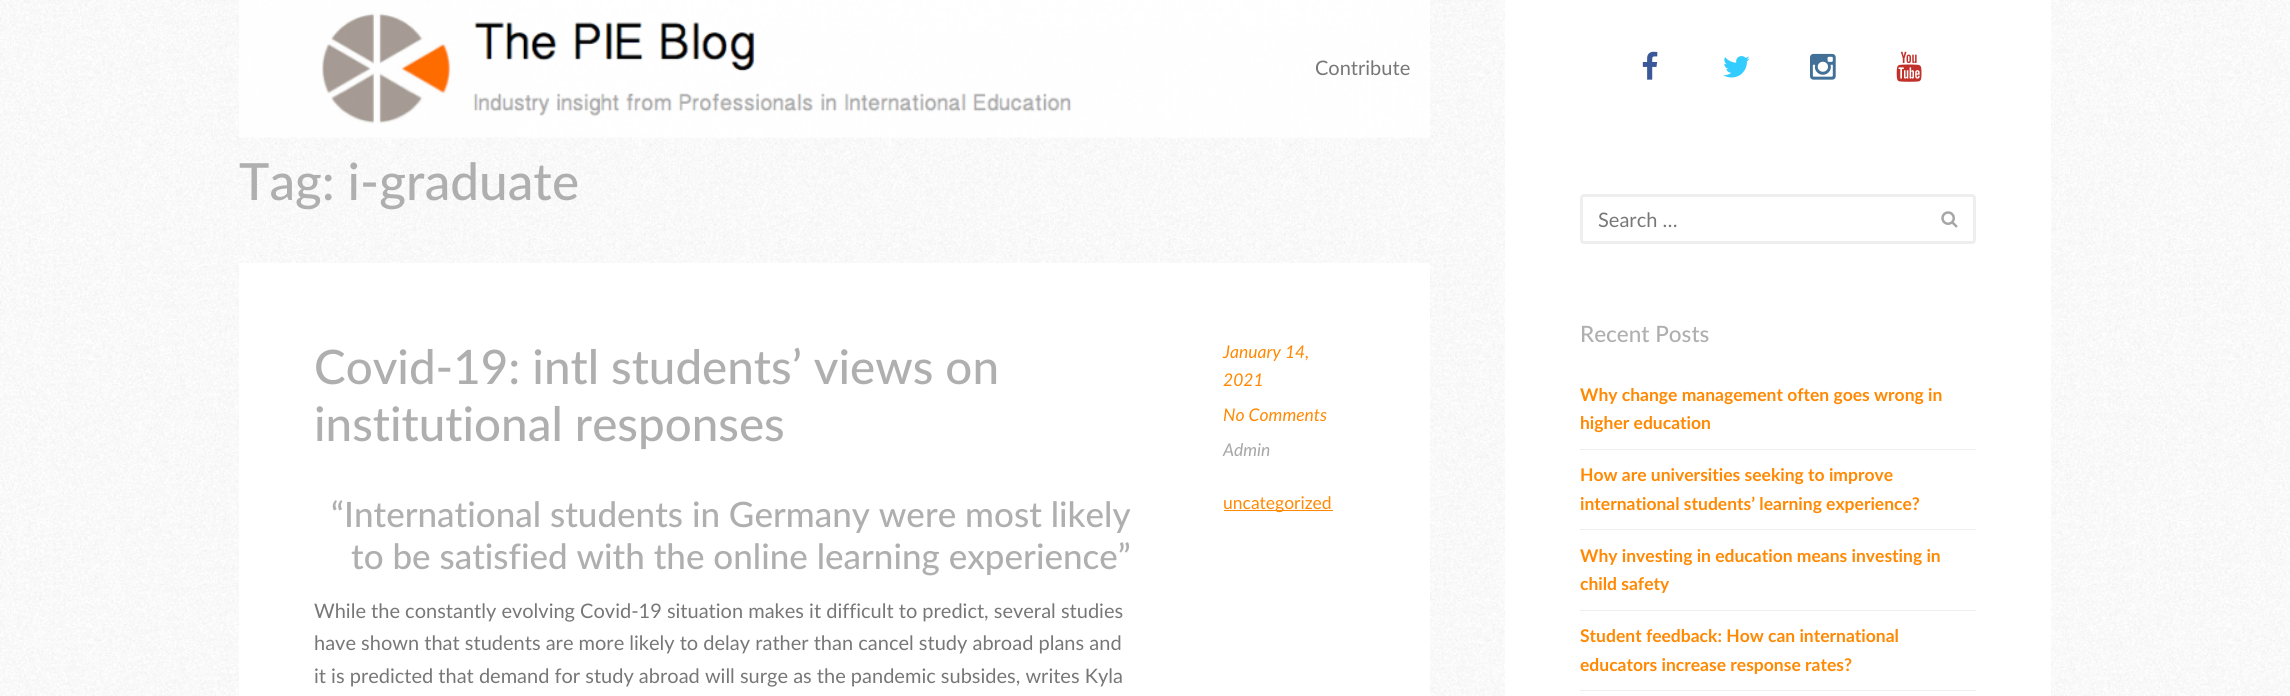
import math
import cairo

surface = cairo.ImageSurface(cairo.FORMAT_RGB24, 2290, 696)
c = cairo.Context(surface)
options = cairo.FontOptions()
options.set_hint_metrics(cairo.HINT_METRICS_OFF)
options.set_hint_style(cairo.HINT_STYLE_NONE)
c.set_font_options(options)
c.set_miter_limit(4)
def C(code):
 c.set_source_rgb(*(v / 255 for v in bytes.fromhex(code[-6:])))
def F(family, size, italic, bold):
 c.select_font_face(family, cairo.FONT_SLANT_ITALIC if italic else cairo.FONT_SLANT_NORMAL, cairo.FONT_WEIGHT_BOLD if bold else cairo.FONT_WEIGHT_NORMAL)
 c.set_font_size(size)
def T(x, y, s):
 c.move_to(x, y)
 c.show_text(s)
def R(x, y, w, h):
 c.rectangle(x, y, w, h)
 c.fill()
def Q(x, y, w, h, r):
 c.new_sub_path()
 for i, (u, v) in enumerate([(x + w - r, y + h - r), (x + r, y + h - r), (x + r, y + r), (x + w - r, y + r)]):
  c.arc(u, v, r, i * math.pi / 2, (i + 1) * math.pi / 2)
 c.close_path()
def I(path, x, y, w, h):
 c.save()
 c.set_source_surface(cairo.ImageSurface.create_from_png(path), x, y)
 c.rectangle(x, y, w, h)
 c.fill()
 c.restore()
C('ffffff')
c.paint()
I('1.png',0,0,2290,696)
I('2.png',239,0,1191,138)
F('Lato',20,0,0)
C('777777')
T(1315,75,'Contribute')
F('Lato Medium',51.25,0,0)
C('afafaf')
T(239,200,'Tag: i-graduate')
C('ffffff')
R(239,263,1191,433)
F('Lato Medium',47.5,0,0)
C('afafaf')
T(314,384,'Covid-19: intl students’ views on')
T(314,441,'institutional responses')
F('Lato Medium',35,0,0)
T(331,527,'“International students in Germany were most likely')
T(351,569,'to be satisfied with the online learning experience”')
F('Lato',20,0,0)
C('777777')
T(314,618,'While the constantly evolving Covid-19 situation makes it difficult to predict, several studies')
T(314,650,'have shown that students are more likely to delay rather than cancel study abroad plans and')
T(314,683,'it is predicted that demand for study abroad will surge as the pandemic subsides, writes Kyla')
F('Lato',17.5,1,0)
C('ff8902')
T(1223,358,'January 14,')
T(1223,386,'2021')
T(1223,421,'No Comments')
C('a6a6a6')
T(1223,456,'Admin')
C('ff8902')
R(1224,510,109,1)
F('Lato',17.5,0,0)
T(1223,509,'uncategorized')
C('ffffff')
R(1505,0,546,696)
I('3.png',1642,51,16,29)
I('4.png',1723,56,27,22)
I('5.png',1810,53,26,27)
I('6.png',1896,51,26,31)
Q(1581.5,195.5,393,47,2.5)
C('eeeeee')
c.set_line_width(3)
c.stroke()
F('Lato',20,0,0)
C('777777')
T(1598,227,'Search …')
I('7.png',1941,211,17,17)
F('Lato Medium',22.5,0,0)
C('afafaf')
T(1580,342,'Recent Posts')
C('eeeeee')
R(1580,449,396,1)
F('Lato',17.5,0,1)
C('ff8902')
T(1580,401,'Why change management often goes wrong in')
T(1580,429,'higher education')
C('eeeeee')
R(1580,529,396,1)
C('ff8902')
T(1580,481,'How are universities seeking to improve')
T(1580,510,'international students’ learning experience?')
C('eeeeee')
R(1580,610,396,1)
C('ff8902')
T(1580,562,'Why investing in education means investing in')
T(1580,590,'child safety')
C('eeeeee')
R(1580,690,396,1)
C('ff8902')
T(1580,642,'Student feedback: How can international')
T(1580,671,'educators increase response rates?')
surface.write_to_png('o.png')
